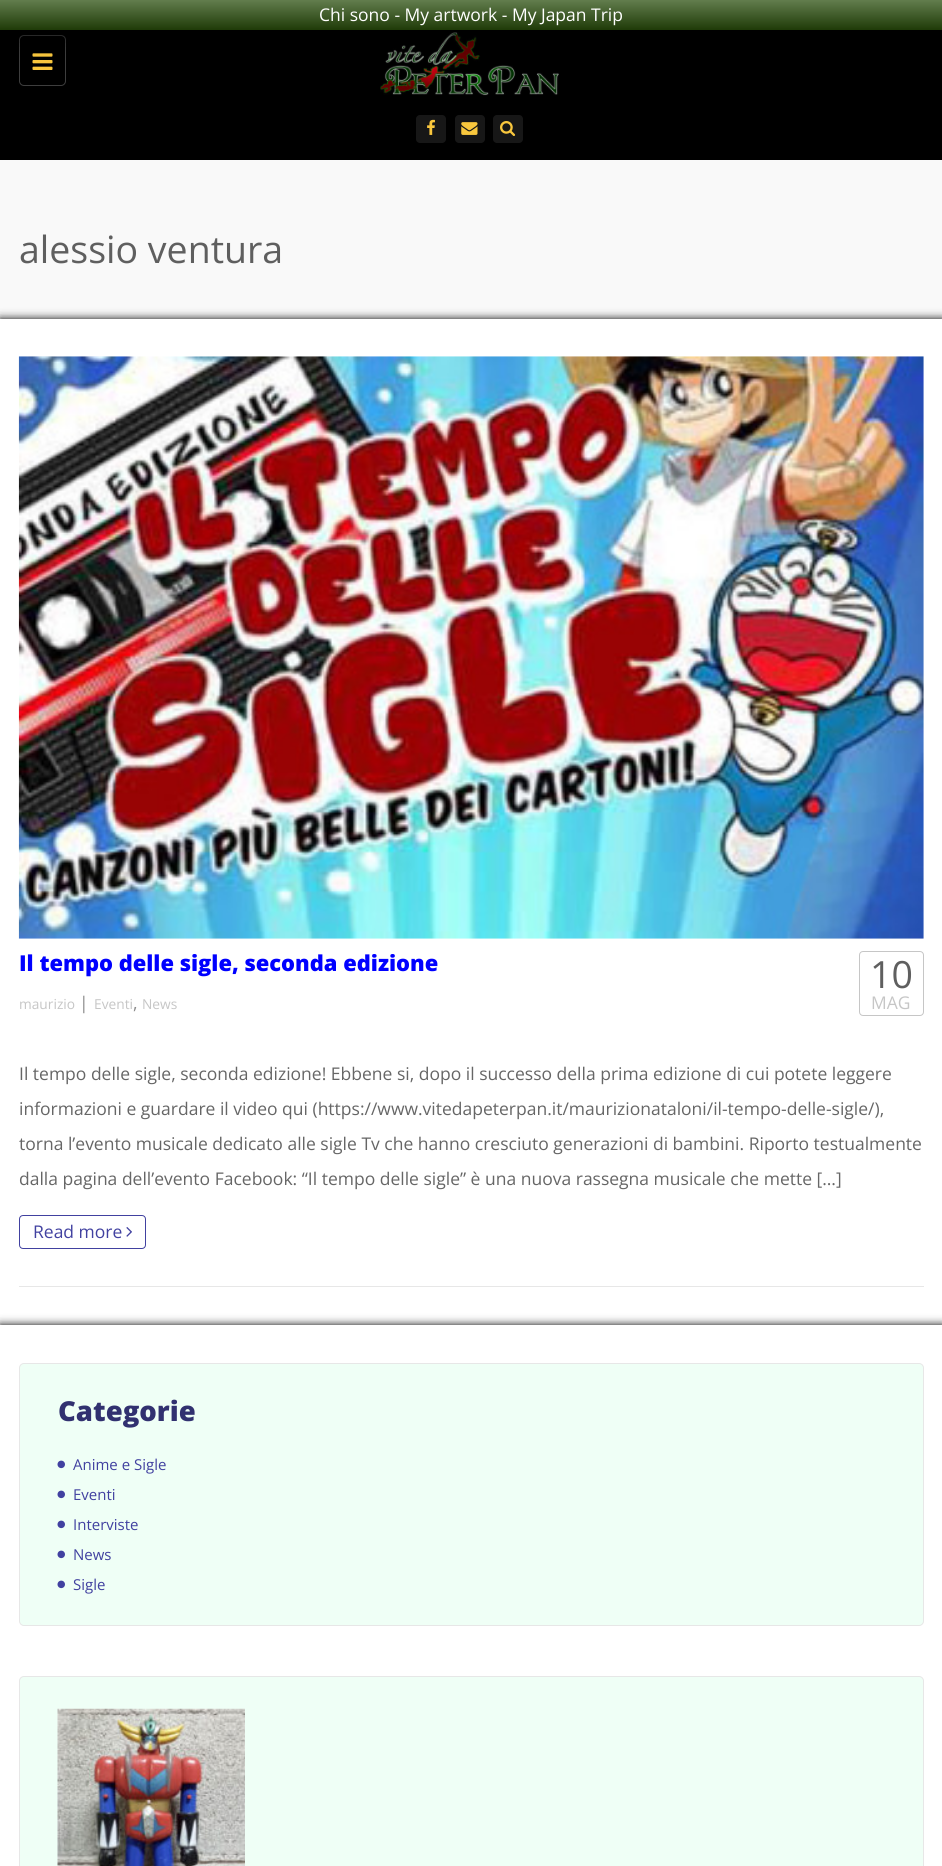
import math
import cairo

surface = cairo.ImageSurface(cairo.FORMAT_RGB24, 942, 1866)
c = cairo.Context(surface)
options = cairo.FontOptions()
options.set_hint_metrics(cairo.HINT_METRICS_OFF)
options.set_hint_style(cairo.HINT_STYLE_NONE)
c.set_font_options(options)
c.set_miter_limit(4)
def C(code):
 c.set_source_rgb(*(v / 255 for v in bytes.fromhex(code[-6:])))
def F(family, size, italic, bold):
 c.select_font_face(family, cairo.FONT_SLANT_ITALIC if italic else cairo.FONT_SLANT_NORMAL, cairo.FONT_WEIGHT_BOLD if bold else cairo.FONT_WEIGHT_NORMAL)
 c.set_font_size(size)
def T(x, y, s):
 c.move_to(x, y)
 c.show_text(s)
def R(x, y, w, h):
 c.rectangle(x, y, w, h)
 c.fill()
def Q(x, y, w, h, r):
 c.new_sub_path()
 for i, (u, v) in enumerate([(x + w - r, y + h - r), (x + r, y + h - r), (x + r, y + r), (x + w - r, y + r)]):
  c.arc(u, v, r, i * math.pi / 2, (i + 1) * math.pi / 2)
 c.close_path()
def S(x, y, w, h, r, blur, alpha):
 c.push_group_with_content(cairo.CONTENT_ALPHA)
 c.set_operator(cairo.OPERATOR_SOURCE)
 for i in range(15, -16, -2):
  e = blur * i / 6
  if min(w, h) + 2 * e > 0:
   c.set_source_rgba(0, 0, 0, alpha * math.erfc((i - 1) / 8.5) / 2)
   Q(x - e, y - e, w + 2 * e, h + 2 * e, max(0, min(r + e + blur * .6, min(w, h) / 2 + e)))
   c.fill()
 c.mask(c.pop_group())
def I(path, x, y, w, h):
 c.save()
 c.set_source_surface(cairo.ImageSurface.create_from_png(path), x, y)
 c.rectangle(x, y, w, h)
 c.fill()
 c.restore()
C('000000')
c.paint()
Q(19.5,35.5,46,50,4.5)
C('3e3e3e')
c.set_line_width(1)
c.stroke()
I('1.png',32,53,21,17)
I('2.png',380,32,179,64)
C('000000')
S(1,6,940,28,0,11,.75)
gradient = cairo.LinearGradient(471,0,471,30)
gradient.add_color_stop_rgba(0,0.384,0.49,0.302,1)
gradient.add_color_stop_rgba(1,0.122,0.231,0.031,1)
c.set_source(gradient)
R(0,0,942,30)
F('Open Sans',17.5,0,0)
C('ffffff')
T(319,21,'Chi sono - My artwork - My Japan Trip')
C('171717')
Q(416,115,30,28,4)
c.fill()
I('3.png',427,119,8,16)
Q(455,115,30,28,4)
c.fill()
I('4.png',461,122,17,13)
Q(493,115,30,28,4)
c.fill()
I('5.png',500,121,16,15)
C('f9f9f9')
R(0,160,942,159)
F('Open Sans',37.5,0,0)
C('5f5f5f')
T(19,263,'alessio ventura')
C('000000')
S(0,319,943,1006,0,4.5,1)
C('ffffff')
R(0,319,942,1006)
C('e7e7e7')
R(19,1286,905,1)
I('6.png',18,356,906,583)
F('Open Sans ExtraBold',21.9,0,0)
C('0000ff')
T(19,971,'Il tempo delle sigle, seconda edizione')
F('Open Sans',13.75,0,0)
C('c6c6c6')
T(19,1009,'maurizio')
F('Open Sans',17.5,0,0)
C('8a8a8a')
T(79,1009,'|')
F('Open Sans',13.75,0,0)
C('c6c6c6')
T(94,1009,'Eventi')
F('Open Sans',17.5,0,0)
C('8a8a8a')
T(133,1009,',')
F('Open Sans',13.75,0,0)
C('c6c6c6')
T(142,1009,'News')
Q(859.5,951.5,64,64,3.5)
c.stroke()
F('Open Sans',37.5,0,0)
C('5f5f5f')
T(870,988,'10')
F('Open Sans',17.5,0,0)
C('c6c6c6')
T(871,1009,'MAG')
C('666666')
T(19,1080,'Il tempo delle sigle, seconda edizione! Ebbene si, dopo il successo della prima edizione di cui potete leggere')
T(19,1115,'informazioni e guardare il video qui (https://www.vitedapeterpan.it/maurizionataloni/il-tempo-delle-sigle/),')
T(19,1150,'torna l’evento musicale dedicato alle sigle Tv che hanno cresciuto generazioni di bambini. Riporto testualmente')
T(19,1185,'dalla pagina dell’evento Facebook: “Il tempo delle sigle” è una nuova rassegna musicale che mette […]')
Q(19.5,1215.5,126,33,3.5)
C('4141a0')
c.stroke()
T(33,1238,'Read more')
I('7.png',126,1227,6,10)
C('000000')
S(0,1325,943,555,0,4.5,1)
C('ffffff')
R(0,1325,942,541)
C('effff6')
Q(19.5,1363.5,904,262,4.5)
c.fill_preserve()
C('e7e7e7')
c.stroke()
F('Open Sans ExtraBold',27.5,0,0)
C('313170')
T(58,1421,'Categorie')
I('8.png',57,1460,8,9)
F('Open Sans',15,0,0)
C('4141a0')
T(73,1470,'Anime e Sigle')
I('8.png',57,1490,8,9)
T(73,1500,'Eventi')
I('8.png',57,1520,8,9)
T(73,1530,'Interviste')
I('8.png',57,1550,8,9)
T(73,1560,'News')
I('8.png',57,1580,8,9)
T(73,1590,'Sigle')
C('effff6')
Q(19.5,1676.5,904,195,4.5)
c.fill_preserve()
C('e7e7e7')
c.stroke()
I('9.png',57,1708,188,158)
surface.write_to_png('o.png')
